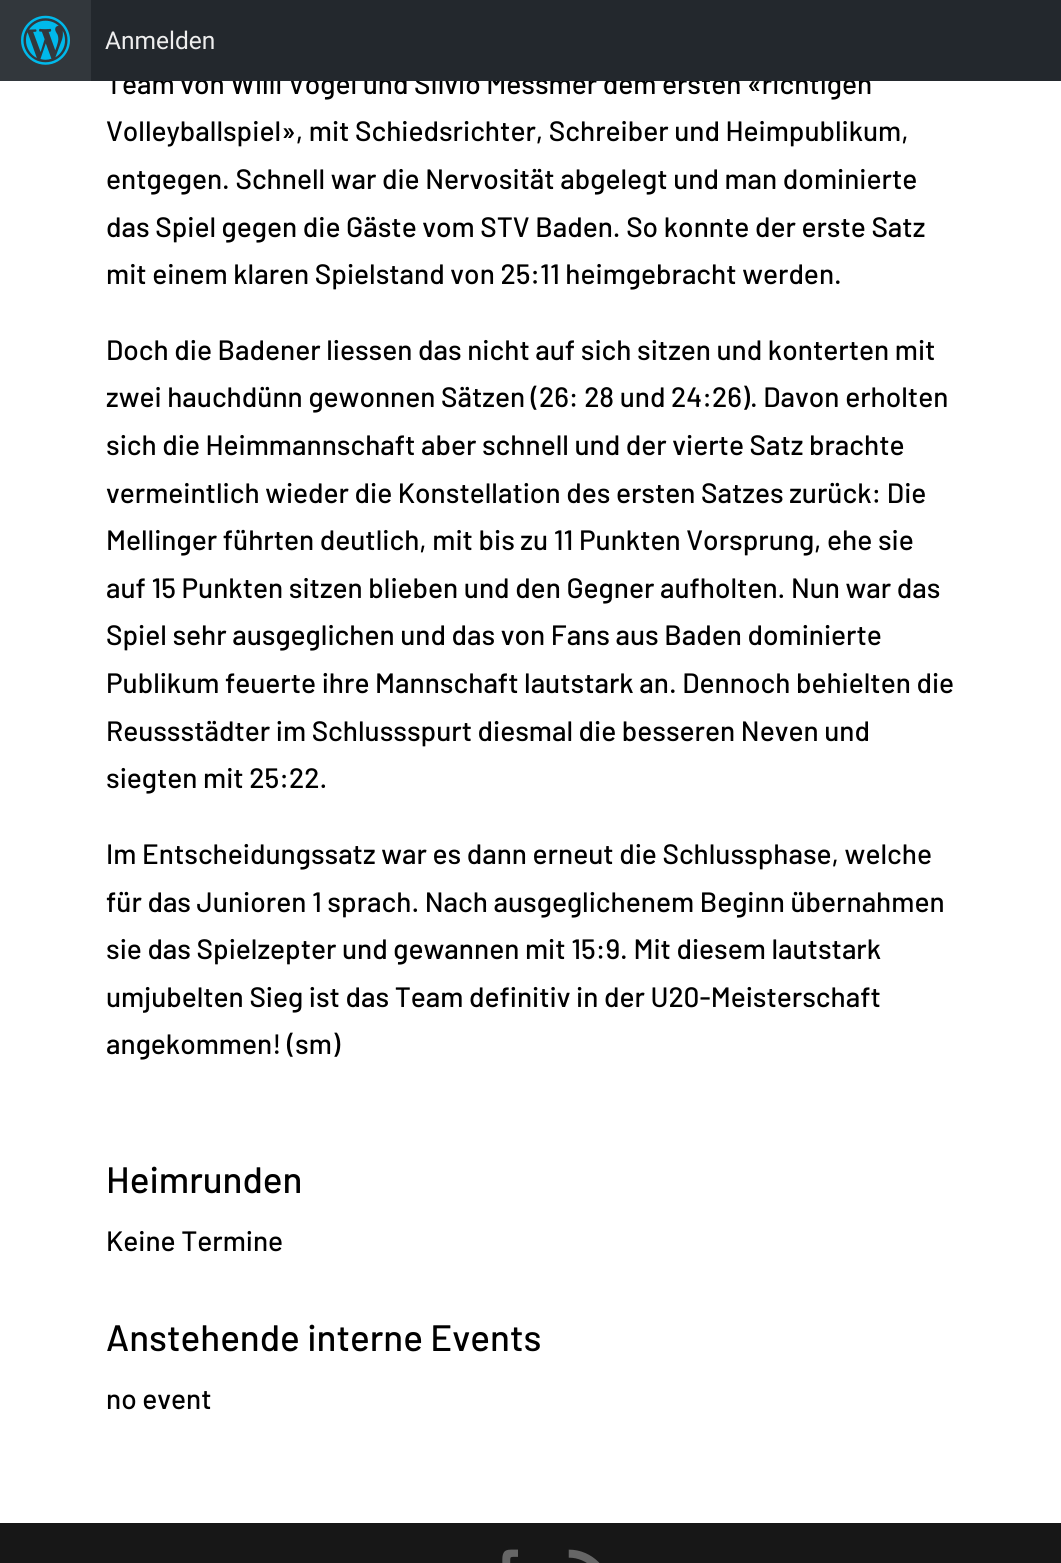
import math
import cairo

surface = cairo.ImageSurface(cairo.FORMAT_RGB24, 1061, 1563)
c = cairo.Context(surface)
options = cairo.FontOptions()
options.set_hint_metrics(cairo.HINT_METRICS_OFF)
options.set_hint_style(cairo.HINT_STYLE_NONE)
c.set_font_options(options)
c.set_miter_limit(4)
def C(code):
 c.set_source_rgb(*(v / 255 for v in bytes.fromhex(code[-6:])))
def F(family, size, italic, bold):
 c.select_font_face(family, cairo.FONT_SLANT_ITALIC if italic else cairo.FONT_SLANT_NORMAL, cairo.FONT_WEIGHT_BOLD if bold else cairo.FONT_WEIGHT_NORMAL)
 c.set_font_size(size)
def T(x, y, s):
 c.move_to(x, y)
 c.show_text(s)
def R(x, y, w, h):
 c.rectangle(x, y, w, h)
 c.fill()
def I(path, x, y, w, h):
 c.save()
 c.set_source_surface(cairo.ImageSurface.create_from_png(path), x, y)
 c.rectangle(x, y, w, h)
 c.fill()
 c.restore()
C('ffffff')
c.paint()
F('Barlow Medium',28,0,0)
C('000000')
T(106,94,'Team von Willi Vogel und Silvio Messmer dem ersten «richtigen')
C('23282d')
R(91,0,970,81)
C('32373c')
R(0,0,91,81)
I('1.png',21,15,49,50)
F('Roboto',24.5,0,0)
C('eeeeee')
T(105,49,'Anmelden')
F('Barlow Medium',28,0,0)
C('000000')
T(106,141,'Volleyballspiel», mit Schiedsrichter, Schreiber und Heimpublikum,')
T(106,189,'entgegen. Schnell war die Nervosität abgelegt und man dominierte')
T(106,237,'das Spiel gegen die Gäste vom STV Baden. So konnte der erste Satz')
T(106,284,'mit einem klaren Spielstand von 25:11 heimgebracht werden.')
T(106,360,'Doch die Badener liessen das nicht auf sich sitzen und konterten mit')
T(106,407,'zwei hauchdünn gewonnen Sätzen (26: 28 und 24:26). Davon erholten')
T(106,455,'sich die Heimmannschaft aber schnell und der vierte Satz brachte')
T(106,503,'vermeintlich wieder die Konstellation des ersten Satzes zurück: Die')
T(106,550,'Mellinger führten deutlich, mit bis zu 11 Punkten Vorsprung, ehe sie')
T(106,598,'auf 15 Punkten sitzen blieben und den Gegner aufholten. Nun war das')
T(106,645,'Spiel sehr ausgeglichen und das von Fans aus Baden dominierte')
T(106,693,'Publikum feuerte ihre Mannschaft lautstark an. Dennoch behielten die')
T(106,741,'Reussstädter im Schlussspurt diesmal die besseren Neven und')
T(106,788,'siegten mit 25:22.')
T(106,864,'Im Entscheidungssatz war es dann erneut die Schlussphase, welche')
T(106,912,'für das Junioren 1 sprach. Nach ausgeglichenem Beginn übernahmen')
T(106,959,'sie das Spielzepter und gewannen mit 15:9. Mit diesem lautstark')
T(106,1007,'umjubelten Sieg ist das Team definitiv in der U20-Meisterschaft')
T(106,1054,'angekommen! (sm)')
F('Barlow Medium',36.75,0,0)
T(106,1193,'Heimrunden')
F('Barlow Medium',28,0,0)
T(106,1251,'Keine Termine')
F('Barlow Medium',36.75,0,0)
T(106,1351,'Anstehende interne Events')
F('Barlow Medium',28,0,0)
T(106,1409,'no event')
C('171717')
R(0,1523,1061,40)
I('2.png',502,1549,16,14)
I('3.png',568,1549,32,14)
surface.write_to_png('o.png')
